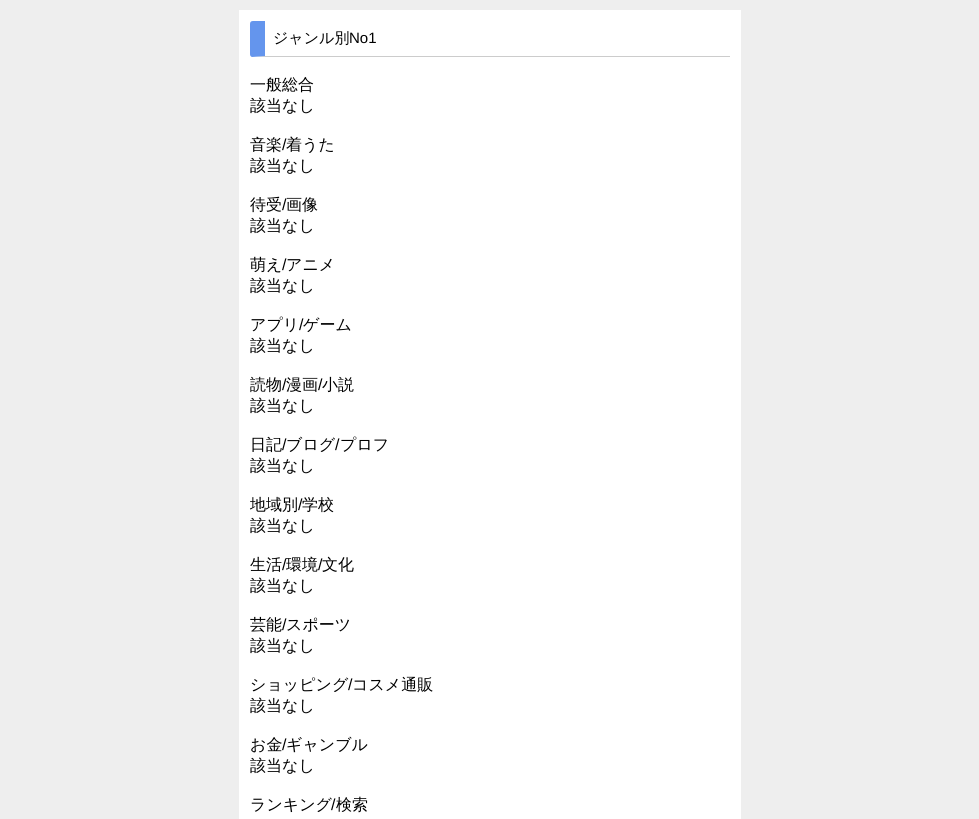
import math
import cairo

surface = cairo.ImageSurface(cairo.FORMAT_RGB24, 979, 819)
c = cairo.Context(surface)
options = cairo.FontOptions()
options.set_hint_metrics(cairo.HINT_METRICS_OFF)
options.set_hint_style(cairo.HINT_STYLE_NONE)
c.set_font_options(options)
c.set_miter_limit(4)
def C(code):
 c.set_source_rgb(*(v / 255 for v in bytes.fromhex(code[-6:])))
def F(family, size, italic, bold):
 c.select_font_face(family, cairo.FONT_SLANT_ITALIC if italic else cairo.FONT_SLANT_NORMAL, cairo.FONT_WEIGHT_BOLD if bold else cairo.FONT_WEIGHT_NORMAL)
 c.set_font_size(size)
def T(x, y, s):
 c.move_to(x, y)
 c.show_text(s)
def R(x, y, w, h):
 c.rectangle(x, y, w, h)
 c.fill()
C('eeeeee')
c.paint()
C('ffffff')
R(239,10,502,809)
C('cccccc')
c.new_path()
c.move_to(730,57)
c.line_to(730,56)
c.line_to(265,56)
c.line_to(252,57)
c.line_to(253,57)
c.close_path()
c.fill()
C('6495ed')
c.new_path()
c.move_to(253,21)
c.line_to(265,21)
c.line_to(265,56)
c.line_to(252,57)
c.curve_to(250.5,56.5,250,55.5,250,54)
c.line_to(250,24)
c.curve_to(250,22,251,21,253,21)
c.close_path()
c.fill()
F('WenQuanYi Zen Hei Medium',15,0,0)
C('000000')
T(273,43,'ジャンル別')
F('Liberation Sans',15,0,0)
T(349,43,'No1')
F('WenQuanYi Zen Hei Medium',16,0,0)
T(250,90,'一般総合')
T(250,111,'該当なし')
T(250,150,'音楽')
F('Liberation Sans',16,0,0)
T(282,150,'/')
F('WenQuanYi Zen Hei Medium',16,0,0)
T(286,150,'着うた')
T(250,171,'該当なし')
T(250,210,'待受')
F('Liberation Sans',16,0,0)
T(282,210,'/')
F('WenQuanYi Zen Hei Medium',16,0,0)
T(286,210,'画像')
T(250,231,'該当なし')
T(250,270,'萌え')
F('Liberation Sans',16,0,0)
T(282,270,'/')
F('WenQuanYi Zen Hei Medium',16,0,0)
T(286,270,'アニメ')
T(250,291,'該当なし')
T(250,330,'アプリ')
F('Liberation Sans',16,0,0)
T(299,330,'/')
F('WenQuanYi Zen Hei Medium',16,0,0)
T(303,330,'ゲーム')
T(250,351,'該当なし')
T(250,390,'読物')
F('Liberation Sans',16,0,0)
T(282,390,'/')
F('WenQuanYi Zen Hei Medium',16,0,0)
T(286,390,'漫画')
F('Liberation Sans',16,0,0)
T(318,390,'/')
F('WenQuanYi Zen Hei Medium',16,0,0)
T(322,390,'小説')
T(250,411,'該当なし')
T(250,450,'日記')
F('Liberation Sans',16,0,0)
T(282,450,'/')
F('WenQuanYi Zen Hei Medium',16,0,0)
T(286,450,'ブログ')
F('Liberation Sans',16,0,0)
T(335,450,'/')
F('WenQuanYi Zen Hei Medium',16,0,0)
T(340,450,'プロフ')
T(250,471,'該当なし')
T(250,510,'地域別')
F('Liberation Sans',16,0,0)
T(298,510,'/')
F('WenQuanYi Zen Hei Medium',16,0,0)
T(302,510,'学校')
T(250,531,'該当なし')
T(250,570,'生活')
F('Liberation Sans',16,0,0)
T(282,570,'/')
F('WenQuanYi Zen Hei Medium',16,0,0)
T(286,570,'環境')
F('Liberation Sans',16,0,0)
T(318,570,'/')
F('WenQuanYi Zen Hei Medium',16,0,0)
T(322,570,'文化')
T(250,591,'該当なし')
T(250,630,'芸能')
F('Liberation Sans',16,0,0)
T(282,630,'/')
F('WenQuanYi Zen Hei Medium',16,0,0)
T(286,630,'スポーツ')
T(250,651,'該当なし')
T(250,690,'ショッピング')
F('Liberation Sans',16,0,0)
T(348,690,'/')
F('WenQuanYi Zen Hei Medium',16,0,0)
T(352,690,'コスメ通販')
T(250,711,'該当なし')
T(250,750,'お金')
F('Liberation Sans',16,0,0)
T(282,750,'/')
F('WenQuanYi Zen Hei Medium',16,0,0)
T(286,750,'ギャンブル')
T(250,771,'該当なし')
T(250,810,'ランキング')
F('Liberation Sans',16,0,0)
T(331,810,'/')
F('WenQuanYi Zen Hei Medium',16,0,0)
T(336,810,'検索')
surface.write_to_png('o.png')
